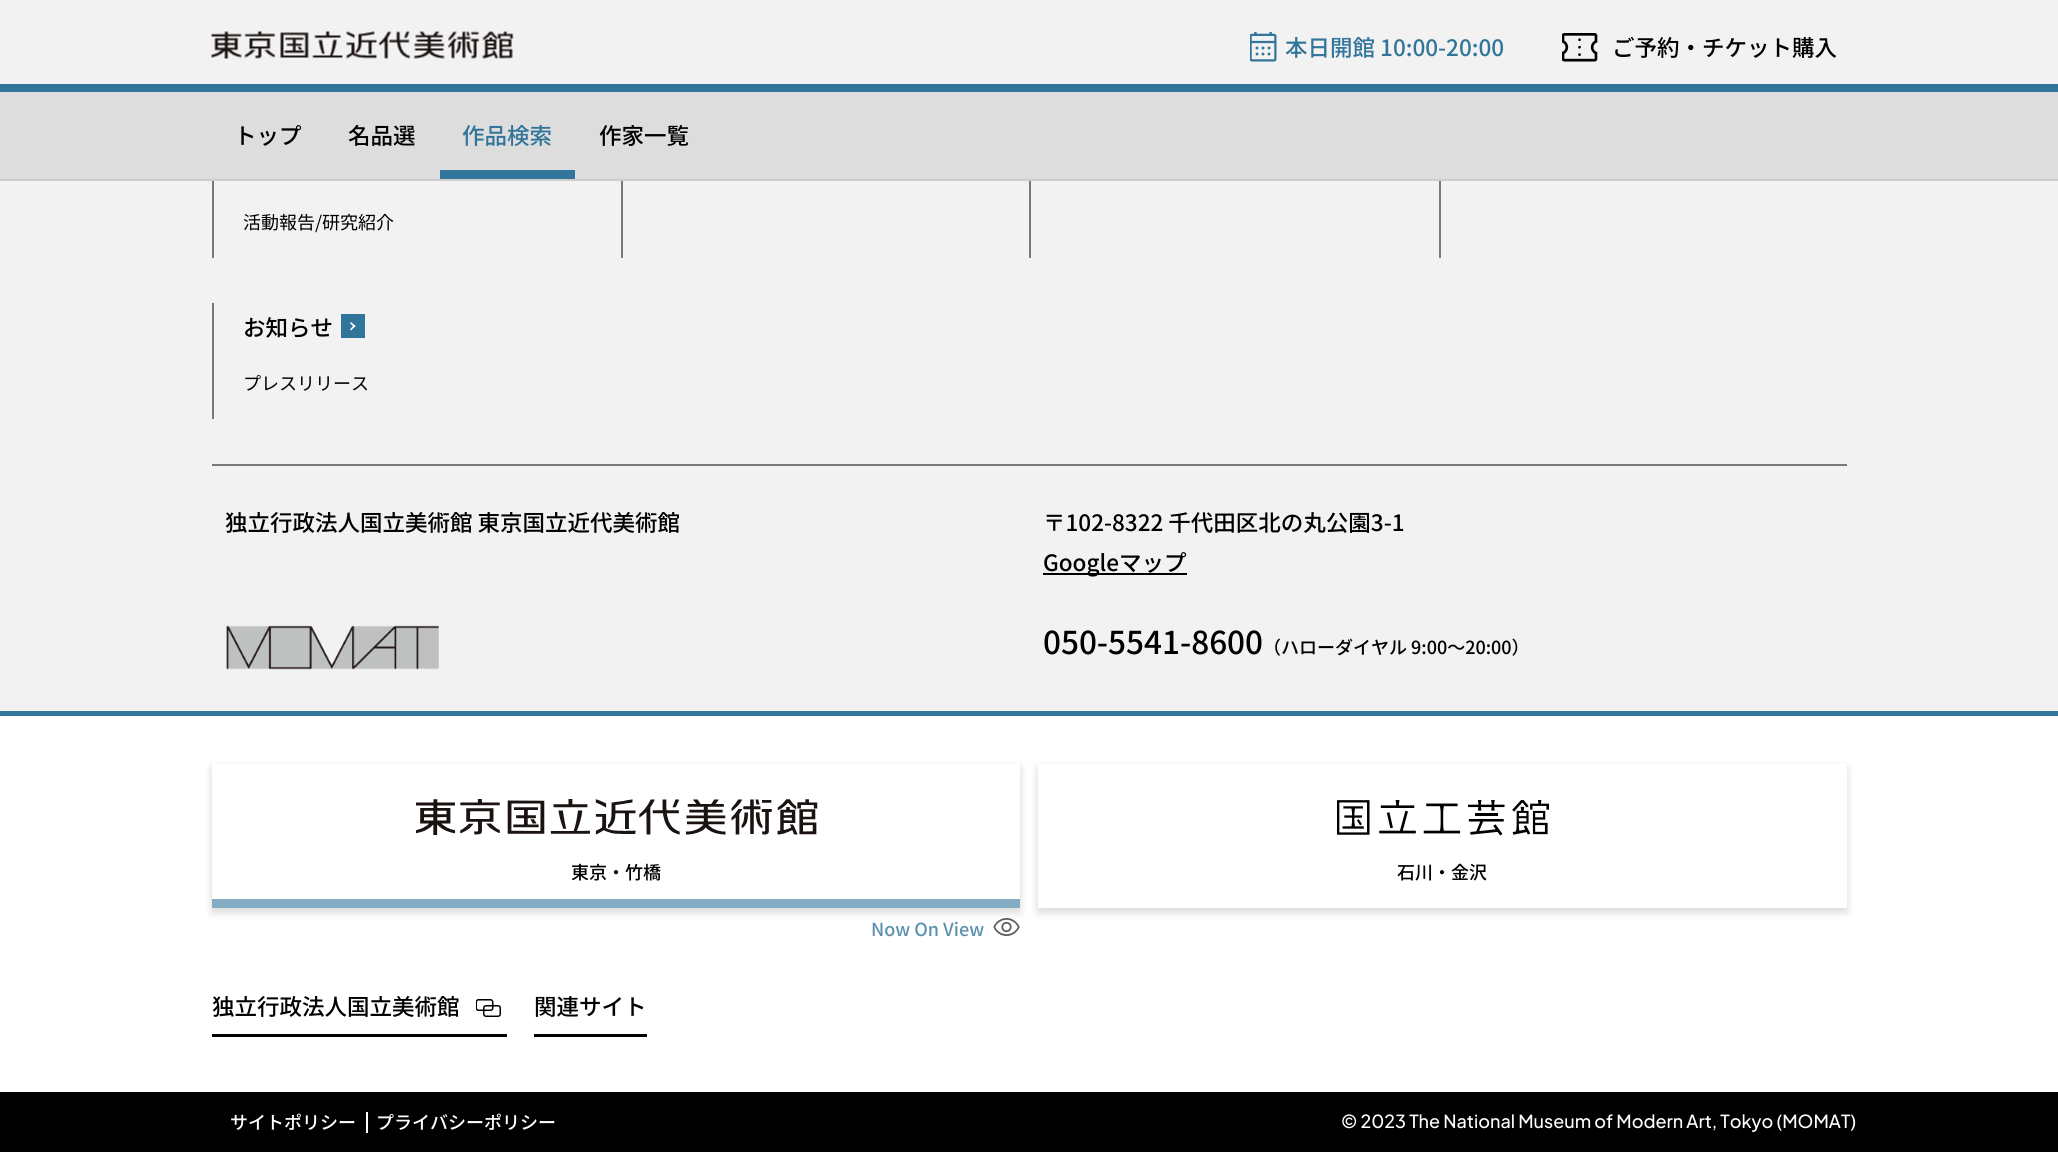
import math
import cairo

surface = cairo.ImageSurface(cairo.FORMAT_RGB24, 2058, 1152)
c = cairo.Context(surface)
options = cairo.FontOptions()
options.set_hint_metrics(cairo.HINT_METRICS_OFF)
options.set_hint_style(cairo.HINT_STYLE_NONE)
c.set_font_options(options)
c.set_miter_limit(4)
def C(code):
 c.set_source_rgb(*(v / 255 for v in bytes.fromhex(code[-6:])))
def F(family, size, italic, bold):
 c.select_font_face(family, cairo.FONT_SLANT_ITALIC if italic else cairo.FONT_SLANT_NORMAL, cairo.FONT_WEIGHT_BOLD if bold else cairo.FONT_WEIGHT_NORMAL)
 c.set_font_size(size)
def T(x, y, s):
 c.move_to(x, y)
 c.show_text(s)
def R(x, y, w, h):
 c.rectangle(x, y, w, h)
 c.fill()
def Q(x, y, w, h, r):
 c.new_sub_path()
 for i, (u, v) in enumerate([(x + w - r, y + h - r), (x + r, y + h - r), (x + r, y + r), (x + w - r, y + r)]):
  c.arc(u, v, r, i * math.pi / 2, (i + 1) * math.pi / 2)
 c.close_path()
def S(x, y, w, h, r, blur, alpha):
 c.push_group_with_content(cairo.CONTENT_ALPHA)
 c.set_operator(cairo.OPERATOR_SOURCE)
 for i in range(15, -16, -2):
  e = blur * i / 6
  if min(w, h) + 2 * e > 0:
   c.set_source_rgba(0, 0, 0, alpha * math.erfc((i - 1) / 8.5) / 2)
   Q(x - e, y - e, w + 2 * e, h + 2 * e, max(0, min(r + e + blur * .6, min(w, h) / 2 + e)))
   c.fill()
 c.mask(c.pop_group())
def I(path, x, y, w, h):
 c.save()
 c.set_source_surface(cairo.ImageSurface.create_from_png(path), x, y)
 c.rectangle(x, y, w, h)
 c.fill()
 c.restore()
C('f2f2f2')
c.paint()
C('31759a')
R(0,84,2058,8)
I('1.png',211,31,303,28)
I('2.png',1250,32,27,30)
F('Noto Sans JP Medium',22.5,0,0)
T(1285,56,'本日開館 10:00-20:00')
I('3.png',1562,33,36,29)
C('000000')
T(1612,56,'ご予約・チケット購入')
C('dddddd')
R(0,92,2058,87)
C('cccccc')
R(0,179,2058,2)
C('000000')
T(234,144,'トップ')
T(348,144,'名品選')
C('31759a')
T(462,144,'作品検索')
R(440,170,135,9)
C('000000')
T(599,144,'作家一覧')
C('797979')
R(212,464,1635,2)
R(212,181,2,77)
F('Noto Sans JP',18,0,0)
C('000000')
T(243,229,'活動報告/研究紹介')
C('797979')
R(621,181,2,77)
R(1029,181,2,77)
R(1439,181,2,77)
R(212,303,2,116)
F('Noto Sans JP Medium',22.5,0,0)
C('000000')
T(243,336,'お知らせ')
C('31759a')
R(341,314,24,24)
C('ffffff')
c.new_path()
c.move_to(350,323)
c.line_to(351,322)
c.line_to(355.5,326)
c.line_to(354,327.5)
c.close_path()
c.fill()
c.new_path()
c.move_to(350,329.5)
c.line_to(354,325)
c.line_to(355.5,326)
c.line_to(351,330.5)
c.close_path()
c.fill()
F('Noto Sans JP',18,0,0)
C('000000')
T(243,390,'プレスリリース')
F('Noto Sans JP Medium',22.5,0,0)
T(225,531,'独立行政法人国立美術館 東京国立近代美術館')
T(1043,531,'〒102-8322 千代田区北の丸公園3-1')
R(1043,573,144,2)
T(1043,571,'Googleマップ')
F('Noto Sans JP Medium',31.5,0,0)
T(1043,654,'050-5541-8600')
F('Noto Sans JP Medium',18,0,0)
T(1263,654,'（ハローダイヤル 9:00～20:00）')
I('4.png',226,625,213,45)
C('ffffff')
R(0,716,2058,376)
C('31759a')
R(0,711,2058,5)
c.save()
c.set_fill_rule(cairo.FILL_RULE_EVEN_ODD)
c.new_path()
c.move_to(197,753)
c.line_to(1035,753)
c.line_to(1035,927)
c.line_to(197,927)
c.close_path()
c.move_to(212,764)
c.line_to(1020,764)
c.line_to(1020,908)
c.line_to(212,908)
c.close_path()
c.clip()
C('000000')
S(212,768,808,144,0,4.5,.16)
c.restore()
c.set_source_rgba(0.192,0.459,0.604,0.6)
R(212,899,808,9)
I('5.png',416,799,402,36)
C('000000')
T(571,879,'東京・竹橋')
C('5a91ae')
T(871,936,'Now On View')
I('6.png',993,918,27,18)
c.save()
c.set_fill_rule(cairo.FILL_RULE_EVEN_ODD)
c.new_path()
c.move_to(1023,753)
c.line_to(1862,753)
c.line_to(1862,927)
c.line_to(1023,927)
c.close_path()
c.move_to(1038,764)
c.line_to(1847,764)
c.line_to(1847,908)
c.line_to(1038,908)
c.close_path()
c.clip()
C('000000')
S(1038,768,809,144,0,4.5,.16)
c.restore()
I('7.png',1337,800,212,36)
C('000000')
T(1397,879,'石川・金沢')
I('8.png',476,999,25,18)
R(212,1034,295,3)
F('Noto Sans JP Medium',22.5,0,0)
T(212,1015,'独立行政法人国立美術館')
R(534,1034,113,3)
T(534,1015,'関連サイト')
R(0,1092,2058,60)
C('ffffff')
R(366,1112,2,21)
F('Noto Sans JP Medium',18,0,0)
T(230,1129,'サイトポリシー')
T(376,1129,'プライバシーポリシー')
F('Plus Jakarta Sans Medium',18,0,0)
T(1341,1128,'© 2023 The National Museum of Modern Art, Tokyo (MOMAT)')
surface.write_to_png('o.png')
